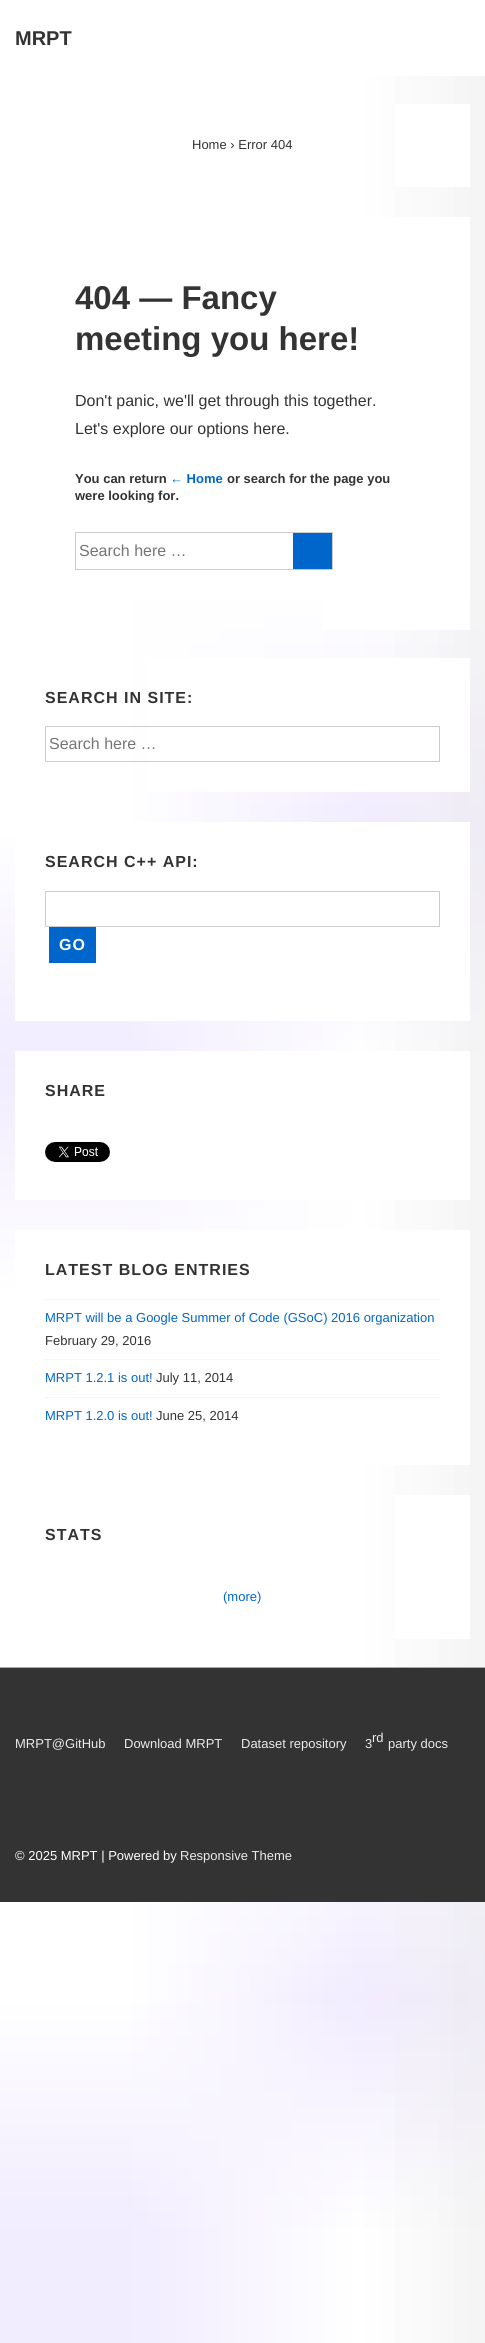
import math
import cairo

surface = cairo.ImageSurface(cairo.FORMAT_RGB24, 485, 2343)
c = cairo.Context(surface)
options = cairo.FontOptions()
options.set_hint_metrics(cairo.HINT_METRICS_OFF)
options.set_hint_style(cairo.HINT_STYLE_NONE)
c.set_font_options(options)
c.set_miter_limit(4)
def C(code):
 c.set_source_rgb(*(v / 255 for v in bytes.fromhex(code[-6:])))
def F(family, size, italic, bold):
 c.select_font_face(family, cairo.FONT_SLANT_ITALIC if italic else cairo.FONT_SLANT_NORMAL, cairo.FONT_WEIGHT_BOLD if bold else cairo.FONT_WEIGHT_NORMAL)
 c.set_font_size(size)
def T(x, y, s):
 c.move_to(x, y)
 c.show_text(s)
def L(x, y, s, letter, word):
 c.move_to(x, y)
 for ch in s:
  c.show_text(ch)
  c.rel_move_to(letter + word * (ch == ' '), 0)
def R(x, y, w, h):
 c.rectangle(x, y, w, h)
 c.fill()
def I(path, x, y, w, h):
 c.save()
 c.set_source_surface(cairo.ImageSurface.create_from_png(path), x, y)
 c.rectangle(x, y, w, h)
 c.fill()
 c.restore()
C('eaeaea')
c.paint()
I('1.png',0,76,485,2267)
C('ffffff')
R(0,0,485,76)
F('Liberation Sans',20,0,1)
C('333333')
T(15,45,'MRPT')
C('ffffff')
R(395,104,75,83)
F('Liberation Sans',13,0,0)
C('333333')
T(192,149,'Home › Error 404')
C('ffffff')
R(322,217,148,413)
F('Liberation Sans',33,0,1)
C('333333')
T(75,309,'404 — Fancy')
T(75,350,'meeting you here!')
F('Liberation Sans',16,0,0)
T(75,406,'Don\'t panic, we\'ll get through this together.')
T(75,434,'Let\'s explore our options here.')
F('Liberation Sans',13,0,1)
T(75,483,'You can return')
C('0066cc')
T(170,483,'← Home')
C('333333')
T(227,483,'or search for the page you')
T(75,500,'were looking for.')
c.rectangle(75.5,532.5,257,37)
C('cccccc')
c.set_line_width(1)
c.stroke()
F('Liberation Sans',16,0,0)
C('757575')
T(79,556,'Search here …')
C('0066cc')
R(293,533,39,36)
C('ffffff')
R(146,658,324,134)
F('Liberation Sans',16,0,1)
C('333333')
L(45,703,'SEARCH IN SITE:',1,0)
c.rectangle(45.5,726.5,394,35)
C('cccccc')
c.stroke()
F('Liberation Sans',16,0,0)
C('757575')
T(49,749,'Search here …')
C('ffffff')
R(15,822,455,199)
F('Liberation Sans',16,0,1)
C('333333')
L(45,867,'SEARCH C++ API:',1,0)
c.rectangle(45.5,891.5,394,35)
C('cccccc')
c.stroke()
C('0066cc')
R(49,927,47,36)
C('ffffff')
L(59,950,'GO',1,0)
R(15,1051,455,149)
C('333333')
L(45,1096,'SHARE',1,0)
I('2.png',45,1142,65,20)
C('ffffff')
R(15,1230,455,235)
C('333333')
L(45,1275,'LATEST BLOG ENTRIES',1,0)
c.new_path()
c.move_to(45,1299.5)
c.line_to(440,1299.5)
C('eeeeee')
c.set_dash([1,1])
c.stroke()
F('Liberation Sans',13,0,0)
C('0066cc')
T(45,1322,'MRPT will be a Google Summer of Code (GSoC) 2016 organization')
C('333333')
T(45,1345,'February 29, 2016')
c.new_path()
c.move_to(45,1359.5)
c.line_to(440,1359.5)
C('eeeeee')
c.stroke()
C('0066cc')
T(45,1382,'MRPT 1.2.1 is out!')
C('333333')
T(156,1382,'July 11, 2014')
c.new_path()
c.move_to(45,1397.5)
c.line_to(440,1397.5)
C('eeeeee')
c.stroke()
C('0066cc')
T(45,1420,'MRPT 1.2.0 is out!')
C('333333')
T(156,1420,'June 25, 2014')
C('ffffff')
R(395,1495,75,144)
F('Liberation Sans',16,0,1)
C('333333')
L(45,1540,'STATS',1,0)
F('Liberation Sans',13,0,0)
C('0066cc')
T(223,1601,'(more)')
C('333333')
R(0,1668,485,234)
C('aaaaaa')
R(0,1667,485,1)
C('eaeaea')
T(15,1748,'MRPT@GitHub')
T(124,1748,'Download MRPT')
T(241,1748,'Dataset repository')
T(365,1748,'3')
T(372,1742,'rd')
T(388,1748,'party docs')
C('ffffff')
T(15,1860,'© 2025 MRPT | Powered by')
C('eaeaea')
T(180,1860,'Responsive Theme')
surface.write_to_png('o.png')
